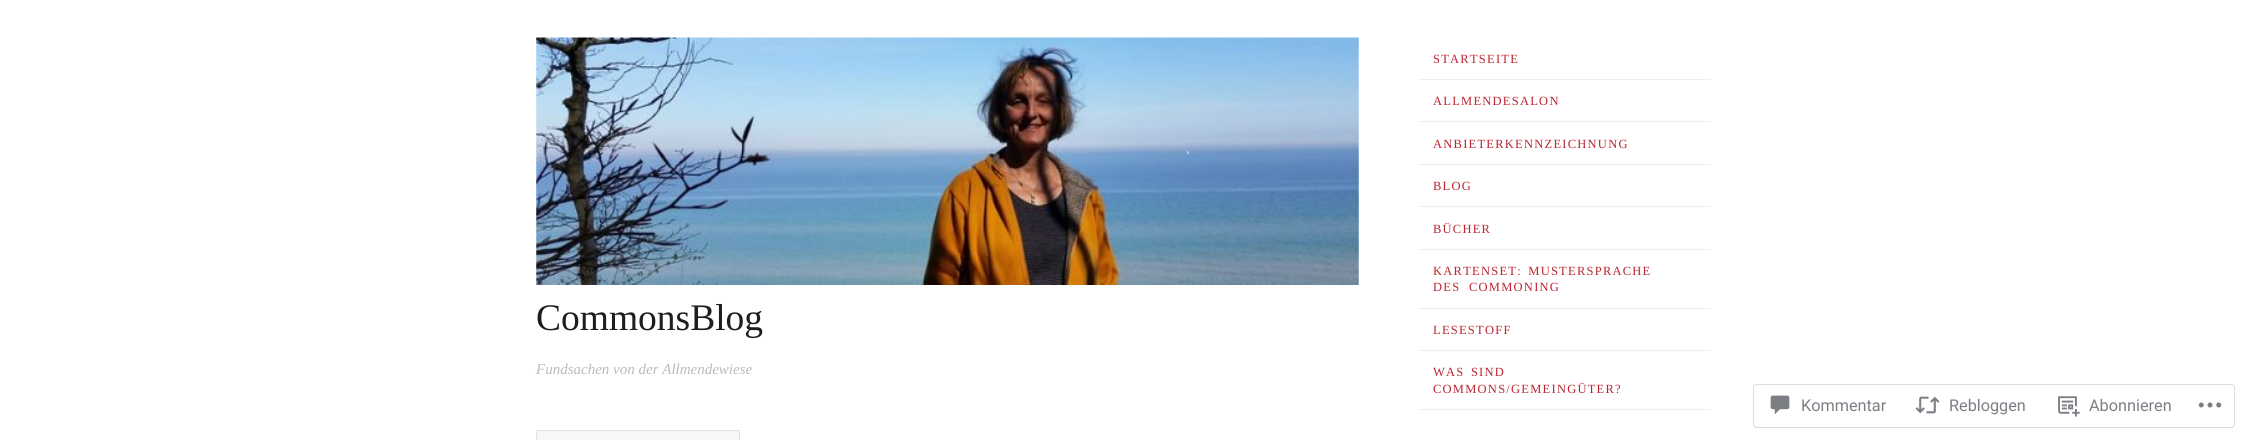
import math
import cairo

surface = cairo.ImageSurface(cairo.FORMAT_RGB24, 2247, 440)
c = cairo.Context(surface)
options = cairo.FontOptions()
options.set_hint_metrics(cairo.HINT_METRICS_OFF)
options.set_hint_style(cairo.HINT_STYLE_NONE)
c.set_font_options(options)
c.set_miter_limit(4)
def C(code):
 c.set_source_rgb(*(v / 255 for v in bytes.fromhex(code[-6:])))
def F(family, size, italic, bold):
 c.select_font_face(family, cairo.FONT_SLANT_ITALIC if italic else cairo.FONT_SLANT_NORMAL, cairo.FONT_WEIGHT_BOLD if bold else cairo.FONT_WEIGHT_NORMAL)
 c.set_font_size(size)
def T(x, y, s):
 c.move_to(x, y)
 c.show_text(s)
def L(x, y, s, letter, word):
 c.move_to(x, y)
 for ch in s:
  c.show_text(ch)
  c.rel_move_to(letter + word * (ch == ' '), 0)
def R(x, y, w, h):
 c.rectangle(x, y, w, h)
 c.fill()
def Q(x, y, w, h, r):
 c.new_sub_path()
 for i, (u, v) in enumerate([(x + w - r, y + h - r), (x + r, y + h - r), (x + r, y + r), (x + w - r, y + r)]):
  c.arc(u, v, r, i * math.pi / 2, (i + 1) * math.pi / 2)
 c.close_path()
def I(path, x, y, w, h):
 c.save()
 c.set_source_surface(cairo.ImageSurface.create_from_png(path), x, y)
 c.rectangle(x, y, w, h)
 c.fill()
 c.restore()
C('ffffff')
c.paint()
I('1.png',536,37,823,248)
F('Liberation Serif',37.5,0,0)
C('1e1e1e')
T(536,330,'CommonsBlog')
F('Liberation Serif',15,1,0)
C('bbbbbb')
T(536,374,'Fundsachen von der Allmendewiese')
C('eeeeee')
R(1418,79,293,1)
F('Liberation Serif',12.5,0,0)
C('bb2530')
L(1433,63,'STARTSEITE',1.25,0)
C('eeeeee')
R(1418,121,293,1)
C('bb2530')
L(1433,105,'ALLMENDESALON',1.25,0)
C('eeeeee')
R(1418,164,293,1)
C('bb2530')
L(1433,148,'ANBIETERKENNZEICHNUNG',1.25,0)
C('eeeeee')
R(1418,206,293,1)
C('bb2530')
L(1433,190,'BLOG',1.25,0)
C('eeeeee')
R(1418,249,293,1)
C('bb2530')
L(1433,233,'BÜCHER',1.25,0)
C('eeeeee')
R(1418,308,293,1)
C('bb2530')
L(1433,275,'KARTENSET: MUSTERSPRACHE',1.25,2)
L(1433,291,'DES',1.25,0)
L(1469,291,'COMMONING',1.25,0)
C('eeeeee')
R(1418,350,293,1)
C('bb2530')
L(1433,334,'LESESTOFF',1.25,0)
C('eeeeee')
R(1418,409,293,1)
C('bb2530')
L(1433,376,'WAS SIND',1.25,2)
L(1433,393,'COMMONS/GEMEINGÜTER?',1.25,0)
C('f7f7f7')
c.rectangle(536.5,430.5,203,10)
c.fill_preserve()
C('e3e3e3')
c.set_line_width(1)
c.stroke()
Q(1753.5,384.5,481,43,3.5)
C('dddddf')
c.stroke()
I('2.png',1770,395,20,20)
F('Roboto',16.25,0,0)
C('7b7f85')
T(1801,411,'Kommentar')
I('3.png',1915,396,25,18)
T(1949,411,'Rebloggen')
I('4.png',2058,396,22,21)
T(2089,411,'Abonnieren')
I('5.png',2198,402,24,6)
surface.write_to_png('o.png')
